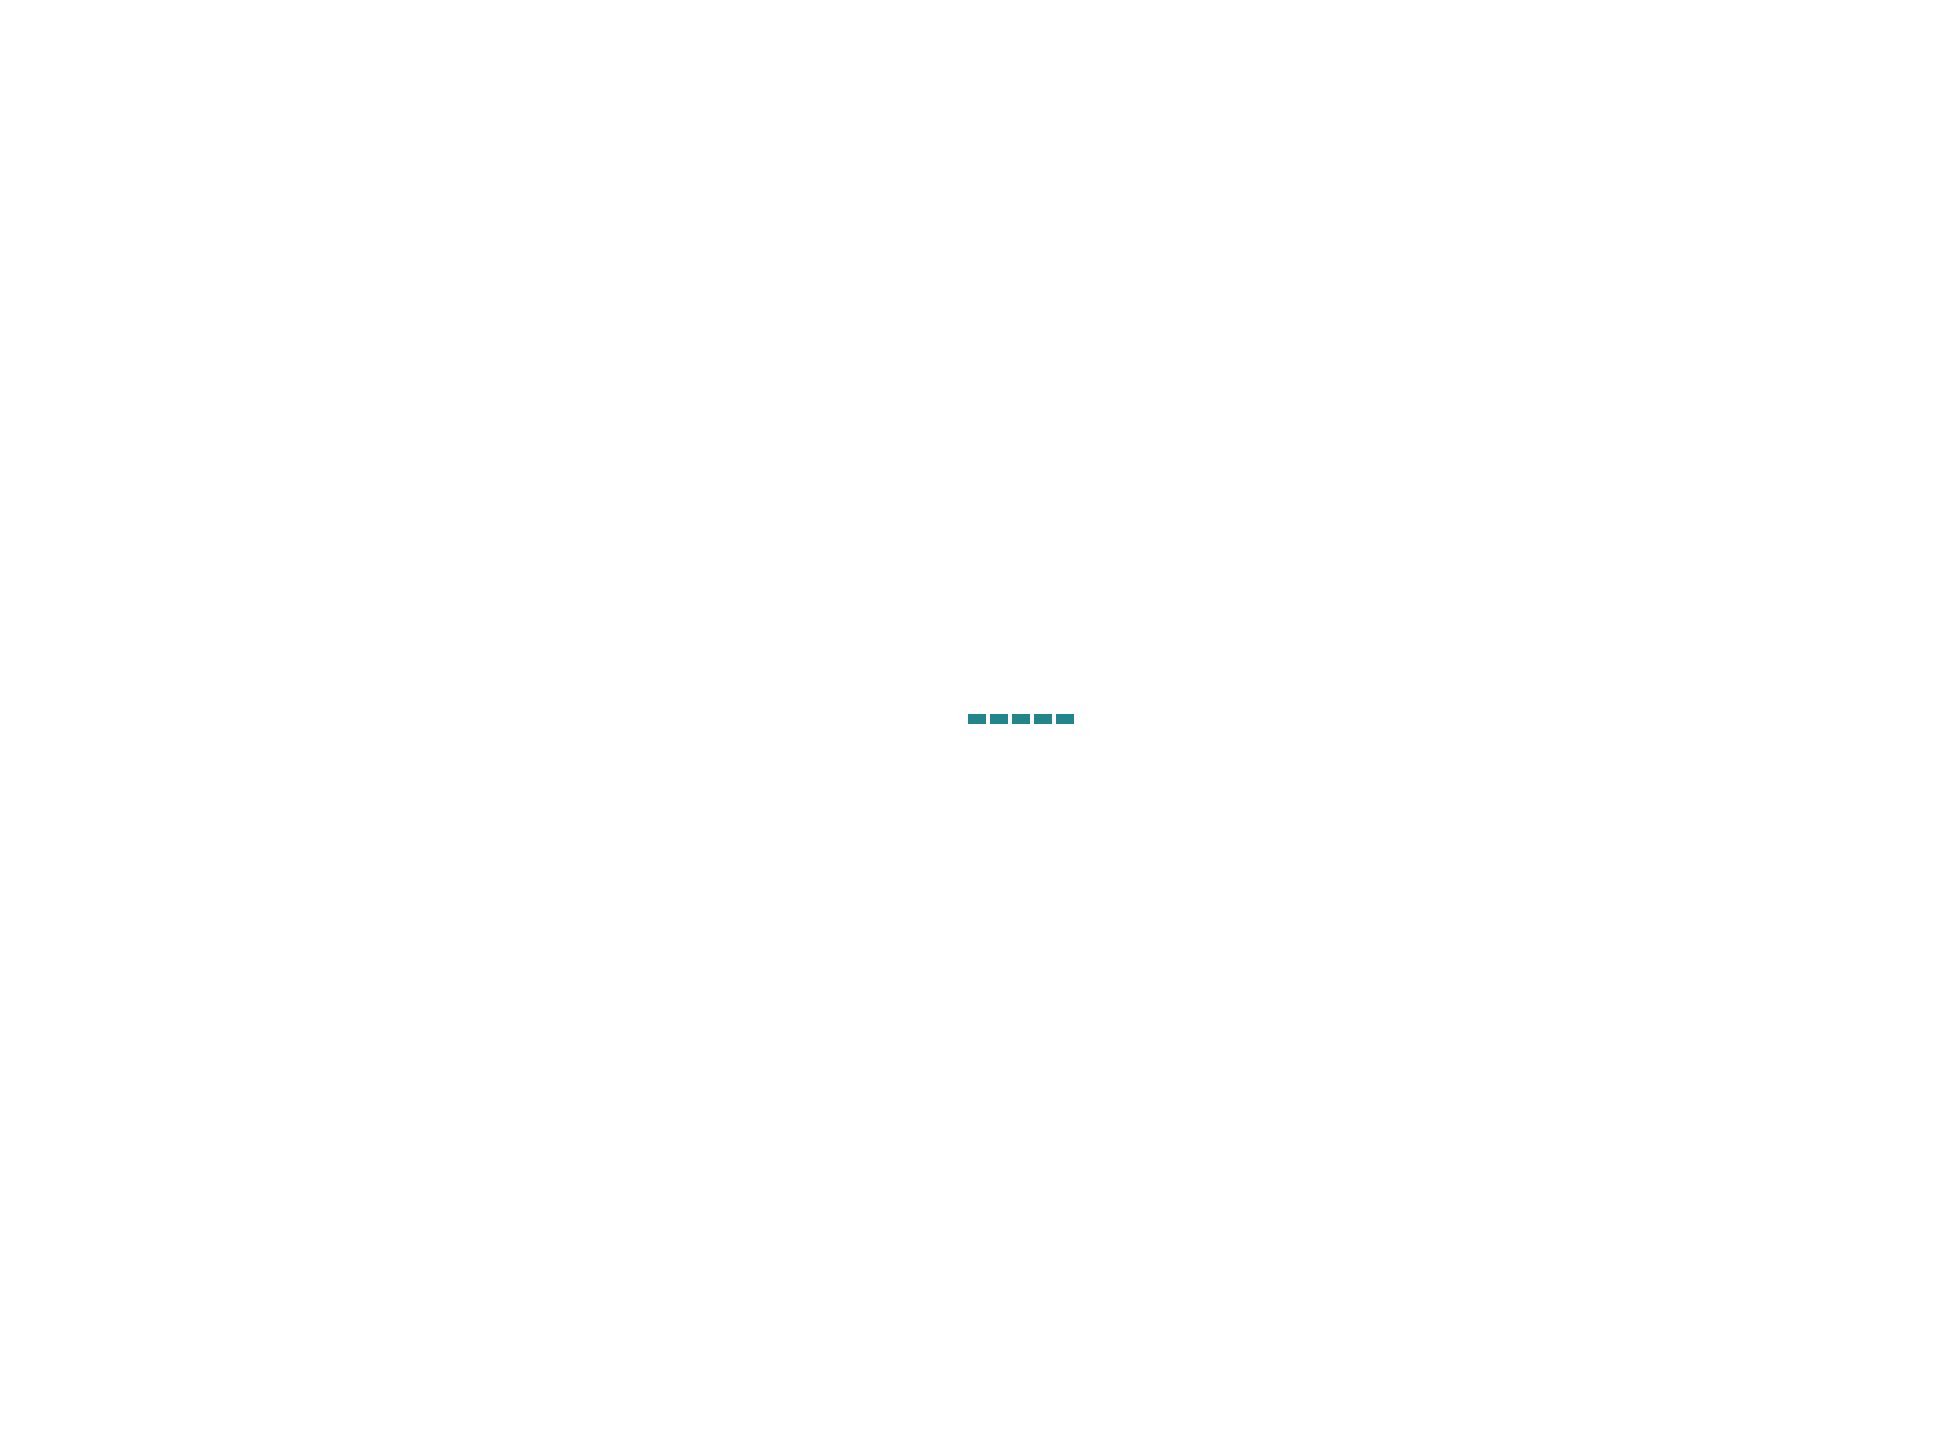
import math
import cairo

surface = cairo.ImageSurface(cairo.FORMAT_RGB24, 1935, 1447)
c = cairo.Context(surface)
options = cairo.FontOptions()
options.set_hint_metrics(cairo.HINT_METRICS_OFF)
options.set_hint_style(cairo.HINT_STYLE_NONE)
c.set_font_options(options)
c.set_miter_limit(4)
def C(code):
 c.set_source_rgb(*(v / 255 for v in bytes.fromhex(code[-6:])))
def R(x, y, w, h):
 c.rectangle(x, y, w, h)
 c.fill()
C('ffffff')
c.paint()
C('21858c')
R(968,714,18,10)
R(990,714,18,10)
R(1012,714,18,10)
R(1034,714,18,10)
R(1056,714,18,10)
surface.write_to_png('o.png')
